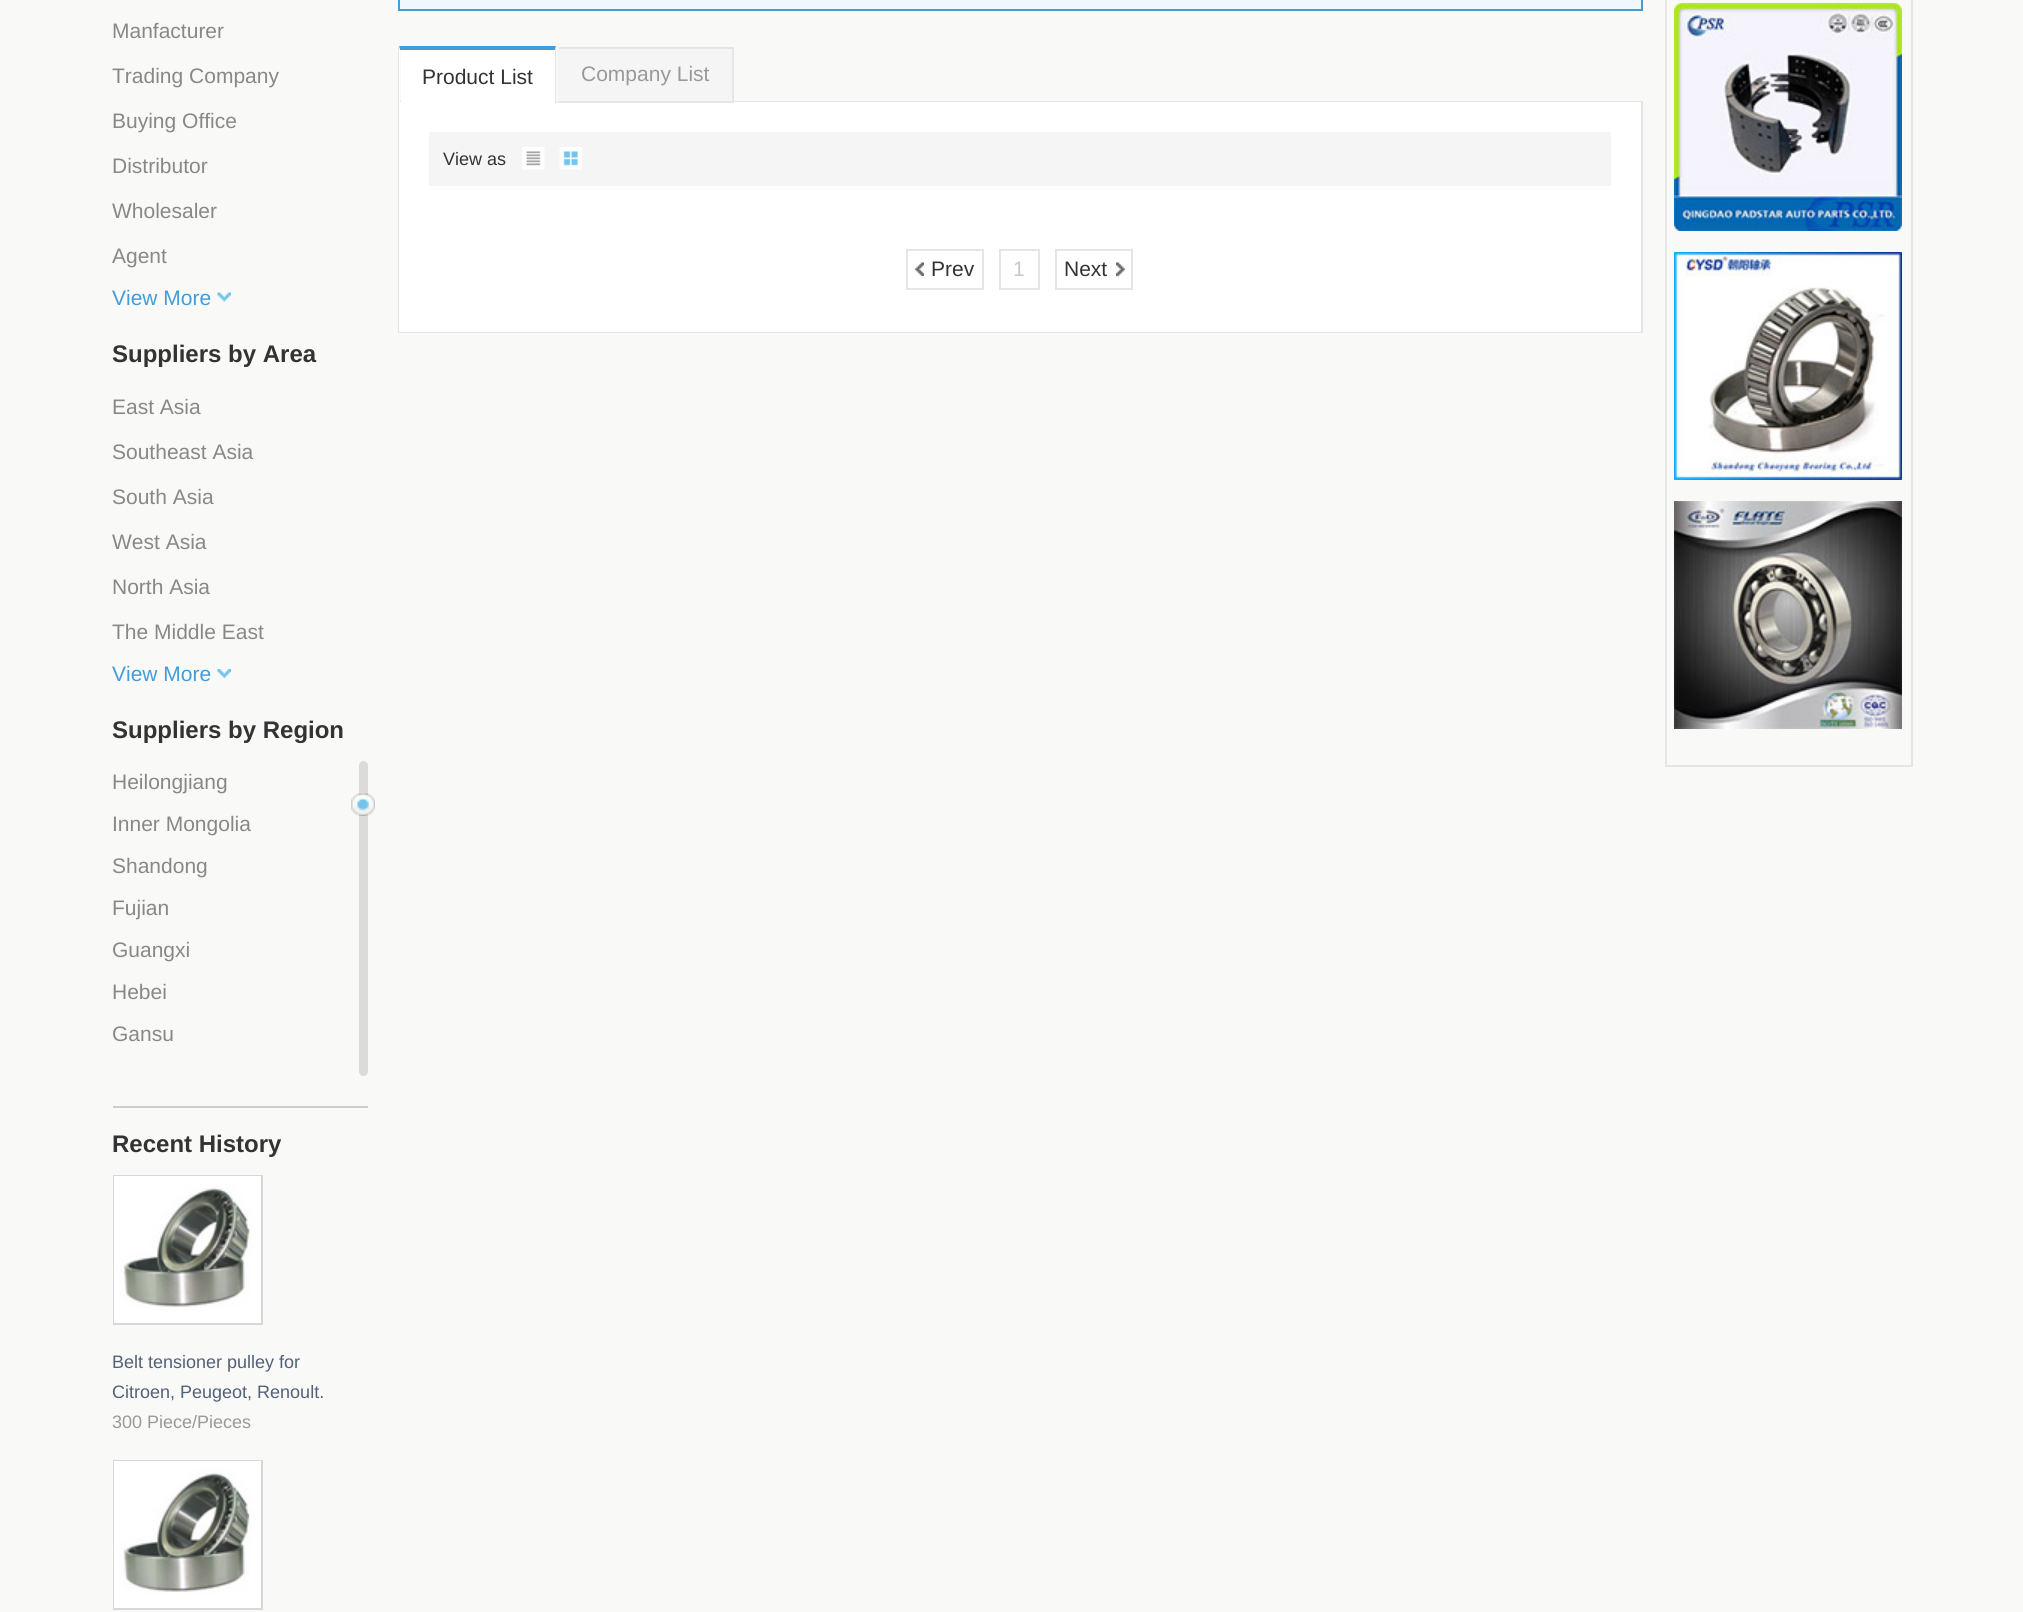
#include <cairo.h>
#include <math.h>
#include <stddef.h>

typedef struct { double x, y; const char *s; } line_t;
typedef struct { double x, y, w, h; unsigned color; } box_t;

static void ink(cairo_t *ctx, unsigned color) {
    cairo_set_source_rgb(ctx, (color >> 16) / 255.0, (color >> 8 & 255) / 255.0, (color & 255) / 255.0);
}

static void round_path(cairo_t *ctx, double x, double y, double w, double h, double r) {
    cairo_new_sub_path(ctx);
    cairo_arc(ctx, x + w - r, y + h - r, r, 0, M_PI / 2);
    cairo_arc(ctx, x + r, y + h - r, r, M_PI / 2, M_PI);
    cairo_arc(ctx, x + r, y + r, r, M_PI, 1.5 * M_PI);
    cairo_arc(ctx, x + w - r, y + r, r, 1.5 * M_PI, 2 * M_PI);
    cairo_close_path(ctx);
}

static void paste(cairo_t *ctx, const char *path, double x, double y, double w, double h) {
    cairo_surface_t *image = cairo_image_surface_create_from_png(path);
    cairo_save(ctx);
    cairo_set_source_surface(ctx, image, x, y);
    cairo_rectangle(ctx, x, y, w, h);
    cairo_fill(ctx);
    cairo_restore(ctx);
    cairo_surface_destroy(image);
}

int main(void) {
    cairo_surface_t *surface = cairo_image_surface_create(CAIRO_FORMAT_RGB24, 2023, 1612);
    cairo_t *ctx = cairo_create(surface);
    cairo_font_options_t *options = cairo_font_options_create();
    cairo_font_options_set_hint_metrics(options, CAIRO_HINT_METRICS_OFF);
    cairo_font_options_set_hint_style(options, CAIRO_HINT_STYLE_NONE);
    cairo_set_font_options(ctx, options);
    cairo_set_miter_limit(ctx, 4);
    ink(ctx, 0xF9F9F8);
    cairo_paint(ctx);
    cairo_select_font_face(ctx, "Liberation Sans", CAIRO_FONT_SLANT_NORMAL, CAIRO_FONT_WEIGHT_NORMAL);
    cairo_set_font_size(ctx, 21);
    ink(ctx, 0x888888);
    {
        static const line_t items[] = {
            {112, 38, "Manfacturer"},
            {112, 83, "Trading Company"},
            {112, 128, "Buying Office"},
            {112, 173, "Distributor"},
            {112, 218, "Wholesaler"},
            {112, 263, "Agent"},
        };
        for (size_t i = 0; i < sizeof items / sizeof *items; i++) {
            cairo_move_to(ctx, items[i].x, items[i].y);
            cairo_show_text(ctx, items[i].s);
        }
    }
    paste(ctx, "media/1.png", 217, 292, 14, 10);
    ink(ctx, 0x449CD7);
    cairo_move_to(ctx, 112, 305);
    cairo_show_text(ctx, "View More");
    cairo_select_font_face(ctx, "Liberation Sans", CAIRO_FONT_SLANT_NORMAL, CAIRO_FONT_WEIGHT_BOLD);
    cairo_set_font_size(ctx, 24);
    ink(ctx, 0x333333);
    cairo_move_to(ctx, 112, 362);
    cairo_show_text(ctx, "Suppliers by Area");
    cairo_select_font_face(ctx, "Liberation Sans", CAIRO_FONT_SLANT_NORMAL, CAIRO_FONT_WEIGHT_NORMAL);
    cairo_set_font_size(ctx, 21);
    ink(ctx, 0x888888);
    {
        static const line_t items[] = {
            {112, 414, "East Asia"},
            {112, 459, "Southeast Asia"},
            {112, 504, "South Asia"},
            {112, 549, "West Asia"},
            {112, 594, "North Asia"},
            {112, 639, "The Middle East"},
        };
        for (size_t i = 0; i < sizeof items / sizeof *items; i++) {
            cairo_move_to(ctx, items[i].x, items[i].y);
            cairo_show_text(ctx, items[i].s);
        }
    }
    paste(ctx, "media/2.png", 217, 669, 14, 9);
    ink(ctx, 0x449CD7);
    cairo_move_to(ctx, 112, 681);
    cairo_show_text(ctx, "View More");
    cairo_select_font_face(ctx, "Liberation Sans", CAIRO_FONT_SLANT_NORMAL, CAIRO_FONT_WEIGHT_BOLD);
    cairo_set_font_size(ctx, 24);
    ink(ctx, 0x333333);
    cairo_move_to(ctx, 112, 738);
    cairo_show_text(ctx, "Suppliers by Region");
    cairo_select_font_face(ctx, "Liberation Sans", CAIRO_FONT_SLANT_NORMAL, CAIRO_FONT_WEIGHT_NORMAL);
    cairo_set_font_size(ctx, 21);
    ink(ctx, 0x888888);
    {
        static const line_t items[] = {
            {112, 789, "Heilongjiang"},
            {112, 831, "Inner Mongolia"},
            {112, 873, "Shandong"},
            {112, 915, "Fujian"},
        };
        for (size_t i = 0; i < sizeof items / sizeof *items; i++) {
            cairo_move_to(ctx, items[i].x, items[i].y);
            cairo_show_text(ctx, items[i].s);
        }
    }
    cairo_save(ctx);
    cairo_rectangle(ctx, 113, 761, 285, 315);
    cairo_clip(ctx);
    cairo_move_to(ctx, 112, 957);
    cairo_show_text(ctx, "Guangxi");
    cairo_restore(ctx);
    cairo_move_to(ctx, 112, 999);
    cairo_show_text(ctx, "Hebei");
    cairo_save(ctx);
    cairo_rectangle(ctx, 113, 761, 285, 315);
    cairo_clip(ctx);
    cairo_move_to(ctx, 112, 1041);
    cairo_show_text(ctx, "Gansu");
    cairo_restore(ctx);
    ink(ctx, 0xDCDBD9);
    round_path(ctx, 359, 761, 9, 315, 4.5);
    cairo_fill(ctx);
    paste(ctx, "media/3.png", 351, 793, 24, 23);
    ink(ctx, 0xCECECE);
    cairo_rectangle(ctx, 113, 1106, 255, 2);
    cairo_fill(ctx);
    cairo_select_font_face(ctx, "Liberation Sans", CAIRO_FONT_SLANT_NORMAL, CAIRO_FONT_WEIGHT_BOLD);
    cairo_set_font_size(ctx, 24);
    ink(ctx, 0x333333);
    cairo_move_to(ctx, 112, 1152);
    cairo_show_text(ctx, "Recent History");
    cairo_rectangle(ctx, 114, 1176, 148, 148);
    ink(ctx, 0xD7D7D7);
    cairo_stroke(ctx);
    paste(ctx, "media/4.png", 114, 1176, 147, 147);
    cairo_select_font_face(ctx, "Liberation Sans", CAIRO_FONT_SLANT_NORMAL, CAIRO_FONT_WEIGHT_NORMAL);
    cairo_set_font_size(ctx, 18);
    ink(ctx, 0x526177);
    cairo_move_to(ctx, 112, 1368);
    cairo_show_text(ctx, "Belt tensioner pulley for");
    cairo_move_to(ctx, 112, 1398);
    cairo_show_text(ctx, "Citroen, Peugeot, Renoult.");
    ink(ctx, 0x999999);
    cairo_move_to(ctx, 112, 1428);
    cairo_show_text(ctx, "300 Piece/Pieces");
    cairo_rectangle(ctx, 114, 1461, 148, 148);
    ink(ctx, 0xD7D7D7);
    cairo_stroke(ctx);
    paste(ctx, "media/4.png", 114, 1461, 147, 147);
    ink(ctx, 0xEFF8FC);
    cairo_rectangle(ctx, 399, -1, 1243, 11);
    cairo_fill_preserve(ctx);
    ink(ctx, 0x449CD7);
    cairo_stroke(ctx);
    cairo_rectangle(ctx, 399, 102, 1243, 230);
    ink(ctx, 0xE5E5E5);
    cairo_stroke(ctx);
    cairo_rectangle(ctx, 398, 47, 2, 55);
    cairo_fill(ctx);
    ink(ctx, 0xFFFFFF);
    cairo_rectangle(ctx, 401, 50, 154, 52);
    cairo_fill(ctx);
    ink(ctx, 0x449CD7);
    cairo_new_path(ctx);
    cairo_move_to(ctx, 399, 46);
    cairo_line_to(ctx, 556, 46);
    cairo_line_to(ctx, 555, 50);
    cairo_line_to(ctx, 400, 50);
    cairo_close_path(ctx);
    cairo_fill(ctx);
    ink(ctx, 0xFFFFFF);
    cairo_rectangle(ctx, 399, 102, 1242, 230);
    cairo_fill(ctx);
    ink(ctx, 0xE5E5E5);
    cairo_new_path(ctx);
    cairo_move_to(ctx, 556, 46);
    cairo_line_to(ctx, 556, 105);
    cairo_line_to(ctx, 555, 104);
    cairo_line_to(ctx, 555, 50);
    cairo_close_path(ctx);
    cairo_fill(ctx);
    ink(ctx, 0xFFFFFF);
    cairo_rectangle(ctx, 555, 104, 2, 1);
    cairo_fill(ctx);
    cairo_new_path(ctx);
    cairo_move_to(ctx, 399, 105);
    cairo_line_to(ctx, 399, 46);
    cairo_line_to(ctx, 400, 50);
    cairo_line_to(ctx, 400, 104);
    cairo_close_path(ctx);
    cairo_fill(ctx);
    cairo_set_font_size(ctx, 21);
    ink(ctx, 0x333333);
    cairo_move_to(ctx, 422, 84);
    cairo_show_text(ctx, "Product List");
    {
        static const box_t items[] = {
            {559, 49, 173, 52, 0xF5F5F5},
            {557, 47, 177, 2, 0xE5E5E5},
            {732, 47, 2, 55, 0xE5E5E5},
            {557, 102, 177, 1, 0xE5E5E5},
            {557, 47, 2, 55, 0xF5F5F5},
        };
        for (size_t i = 0; i < sizeof items / sizeof *items; i++) {
            ink(ctx, items[i].color);
            cairo_rectangle(ctx, items[i].x, items[i].y, items[i].w, items[i].h);
            cairo_fill(ctx);
        }
    }
    ink(ctx, 0x999999);
    cairo_move_to(ctx, 581, 81);
    cairo_show_text(ctx, "Company List");
    ink(ctx, 0xF5F5F5);
    cairo_rectangle(ctx, 429, 132, 1182, 54);
    cairo_fill(ctx);
    cairo_set_font_size(ctx, 18);
    ink(ctx, 0x333333);
    cairo_move_to(ctx, 443, 165);
    cairo_show_text(ctx, "View as");
    paste(ctx, "media/5.png", 522, 147, 23, 23);
    paste(ctx, "media/6.png", 559, 147, 23, 23);
    paste(ctx, "media/7.png", 915, 262, 9, 14);
    cairo_rectangle(ctx, 907, 250, 76, 39);
    ink(ctx, 0xE5E5E5);
    cairo_stroke(ctx);
    cairo_set_font_size(ctx, 21);
    ink(ctx, 0x333333);
    cairo_move_to(ctx, 931, 276);
    cairo_show_text(ctx, "Prev");
    cairo_rectangle(ctx, 1000, 250, 39, 39);
    ink(ctx, 0xE5E5E5);
    cairo_stroke(ctx);
    ink(ctx, 0xC8C8C8);
    cairo_move_to(ctx, 1013, 276);
    cairo_show_text(ctx, "1");
    paste(ctx, "media/8.png", 1116, 262, 9, 15);
    cairo_rectangle(ctx, 1056, 250, 76, 39);
    ink(ctx, 0xE5E5E5);
    cairo_stroke(ctx);
    ink(ctx, 0x333333);
    cairo_move_to(ctx, 1064, 276);
    cairo_show_text(ctx, "Next");
    cairo_rectangle(ctx, 1666, -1, 246, 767);
    ink(ctx, 0xE5E5E5);
    cairo_stroke(ctx);
    paste(ctx, "media/9.png", 1674, 3, 228, 228);
    paste(ctx, "media/10.png", 1674, 252, 228, 228);
    paste(ctx, "media/11.png", 1674, 501, 228, 228);
    cairo_surface_write_to_png(surface, "image.png");
    cairo_font_options_destroy(options);
    cairo_destroy(ctx);
    cairo_surface_destroy(surface);
    return 0;
}
